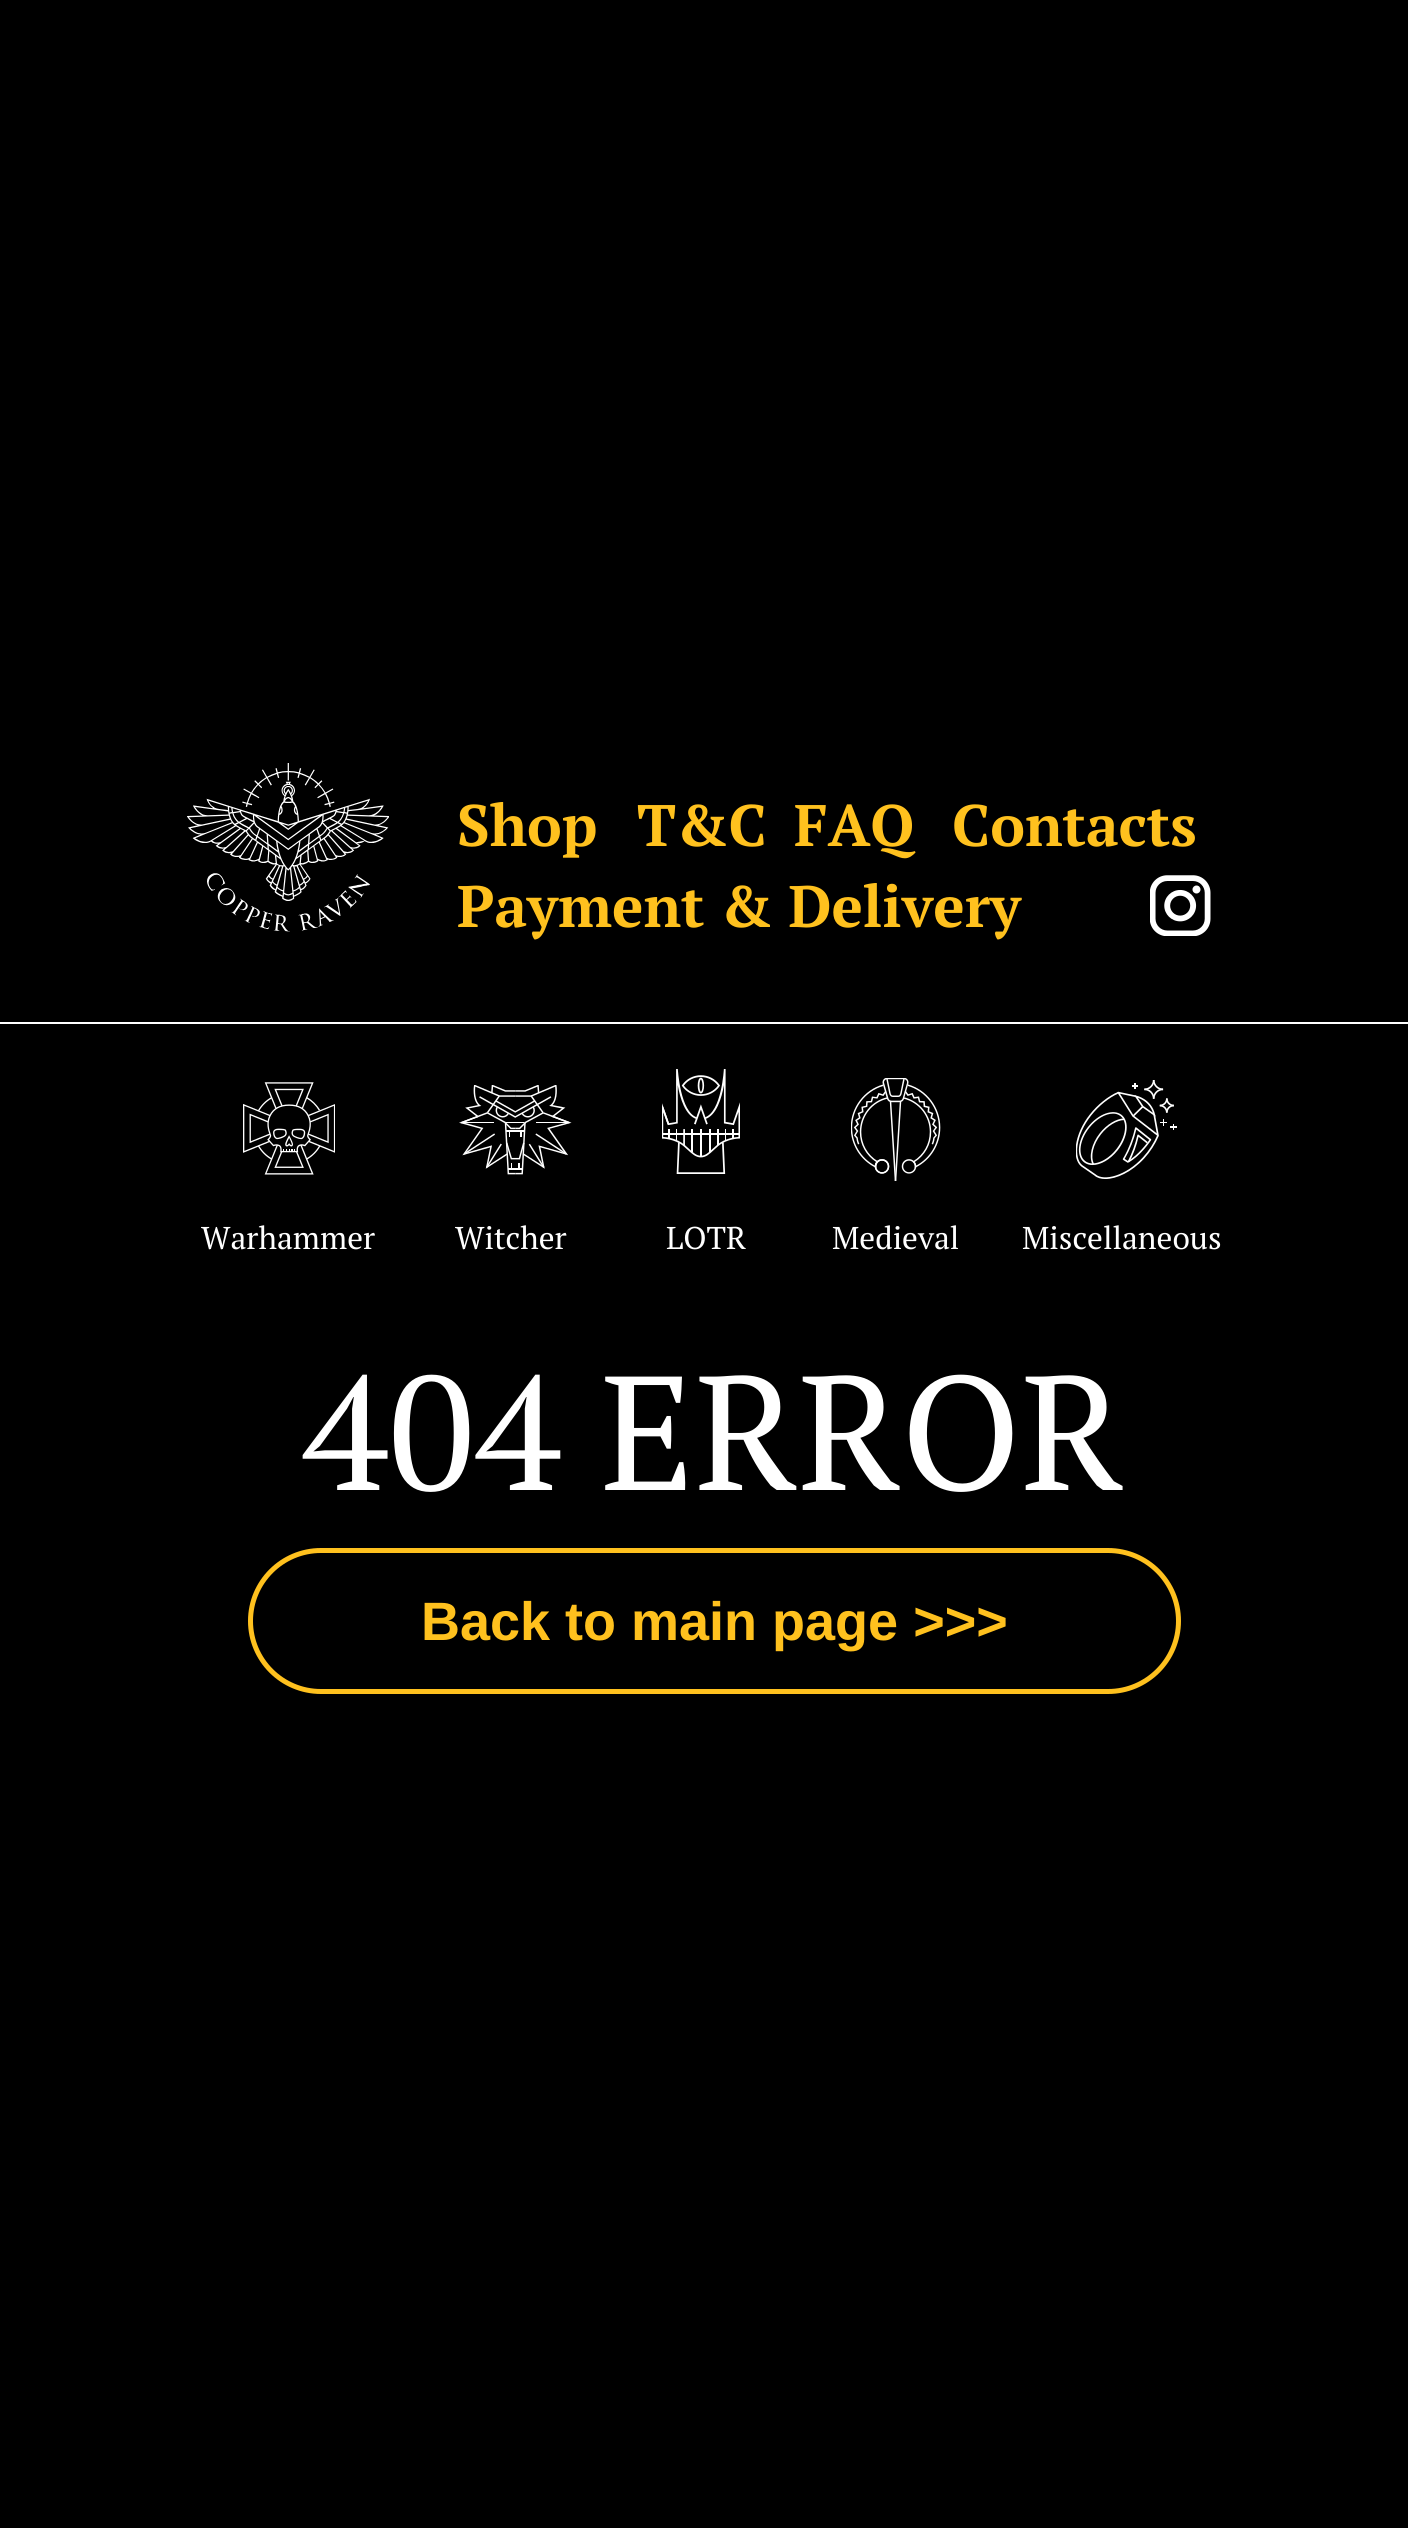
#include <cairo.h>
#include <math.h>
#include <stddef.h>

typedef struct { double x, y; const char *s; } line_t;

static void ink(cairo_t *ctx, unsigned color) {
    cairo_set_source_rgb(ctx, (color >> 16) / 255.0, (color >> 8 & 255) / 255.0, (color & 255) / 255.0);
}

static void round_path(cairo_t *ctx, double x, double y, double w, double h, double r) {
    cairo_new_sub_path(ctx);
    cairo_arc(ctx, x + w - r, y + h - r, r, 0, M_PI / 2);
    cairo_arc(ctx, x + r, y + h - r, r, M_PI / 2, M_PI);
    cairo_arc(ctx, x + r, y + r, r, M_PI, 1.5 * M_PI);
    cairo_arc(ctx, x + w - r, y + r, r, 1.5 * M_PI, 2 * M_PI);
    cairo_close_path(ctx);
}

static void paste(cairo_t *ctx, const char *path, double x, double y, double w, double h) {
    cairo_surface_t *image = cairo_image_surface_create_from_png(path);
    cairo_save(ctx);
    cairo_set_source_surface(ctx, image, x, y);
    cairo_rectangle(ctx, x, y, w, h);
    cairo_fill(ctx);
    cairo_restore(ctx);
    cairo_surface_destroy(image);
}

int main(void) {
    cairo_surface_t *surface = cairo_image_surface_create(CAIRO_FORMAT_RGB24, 1408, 2528);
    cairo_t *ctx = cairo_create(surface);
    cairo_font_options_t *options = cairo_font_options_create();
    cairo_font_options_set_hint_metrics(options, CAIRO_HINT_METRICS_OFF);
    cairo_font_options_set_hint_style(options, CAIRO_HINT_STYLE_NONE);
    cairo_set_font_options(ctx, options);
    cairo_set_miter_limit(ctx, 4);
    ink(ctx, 0x000000);
    cairo_paint(ctx);
    paste(ctx, "media/1.png", 187, 763, 202, 169);
    cairo_select_font_face(ctx, "PT Serif", CAIRO_FONT_SLANT_NORMAL, CAIRO_FONT_WEIGHT_BOLD);
    cairo_set_font_size(ctx, 58.5);
    ink(ctx, 0xFFC11E);
    {
        static const line_t items[] = {
            {457, 846, "Shop"},
            {637, 846, "T&C"},
            {794, 846, "FAQ"},
            {952, 846, "Contacts"},
            {457, 927, "Payment & Delivery"},
        };
        for (size_t i = 0; i < sizeof items / sizeof *items; i++) {
            cairo_move_to(ctx, items[i].x, items[i].y);
            cairo_show_text(ctx, items[i].s);
        }
    }
    paste(ctx, "media/2.png", 1150, 875, 61, 61);
    ink(ctx, 0xFFFFFF);
    cairo_rectangle(ctx, 0, 1022, 1408, 2);
    cairo_fill(ctx);
    paste(ctx, "media/3.png", 243, 1082, 92, 93);
    paste(ctx, "media/4.png", 459, 1085, 113, 90);
    paste(ctx, "media/5.png", 662, 1069, 78, 105);
    paste(ctx, "media/6.png", 851, 1078, 90, 103);
    paste(ctx, "media/7.png", 1076, 1080, 101, 99);
    cairo_select_font_face(ctx, "PT Serif", CAIRO_FONT_SLANT_NORMAL, CAIRO_FONT_WEIGHT_NORMAL);
    cairo_set_font_size(ctx, 31.5);
    {
        static const line_t items[] = {
            {201, 1249, "Warhammer"},
            {455, 1249, "Witcher"},
            {666, 1249, "LOTR"},
            {832, 1249, "Medieval"},
            {1022, 1249, "Miscellaneous"},
        };
        for (size_t i = 0; i < sizeof items / sizeof *items; i++) {
            cairo_move_to(ctx, items[i].x, items[i].y);
            cairo_show_text(ctx, items[i].s);
        }
    }
    cairo_set_font_size(ctx, 162);
    cairo_move_to(ctx, 302, 1490);
    cairo_show_text(ctx, "404 ERROR");
    round_path(ctx, 250.5, 1550.5, 928, 141, 70.5);
    ink(ctx, 0xFFC11E);
    cairo_set_line_width(ctx, 5);
    cairo_stroke(ctx);
    cairo_select_font_face(ctx, "Liberation Sans", CAIRO_FONT_SLANT_NORMAL, CAIRO_FONT_WEIGHT_BOLD);
    cairo_set_font_size(ctx, 54);
    cairo_move_to(ctx, 421, 1640);
    cairo_show_text(ctx, "Back to main page >>>");
    cairo_surface_write_to_png(surface, "image.png");
    cairo_font_options_destroy(options);
    cairo_destroy(ctx);
    cairo_surface_destroy(surface);
    return 0;
}
